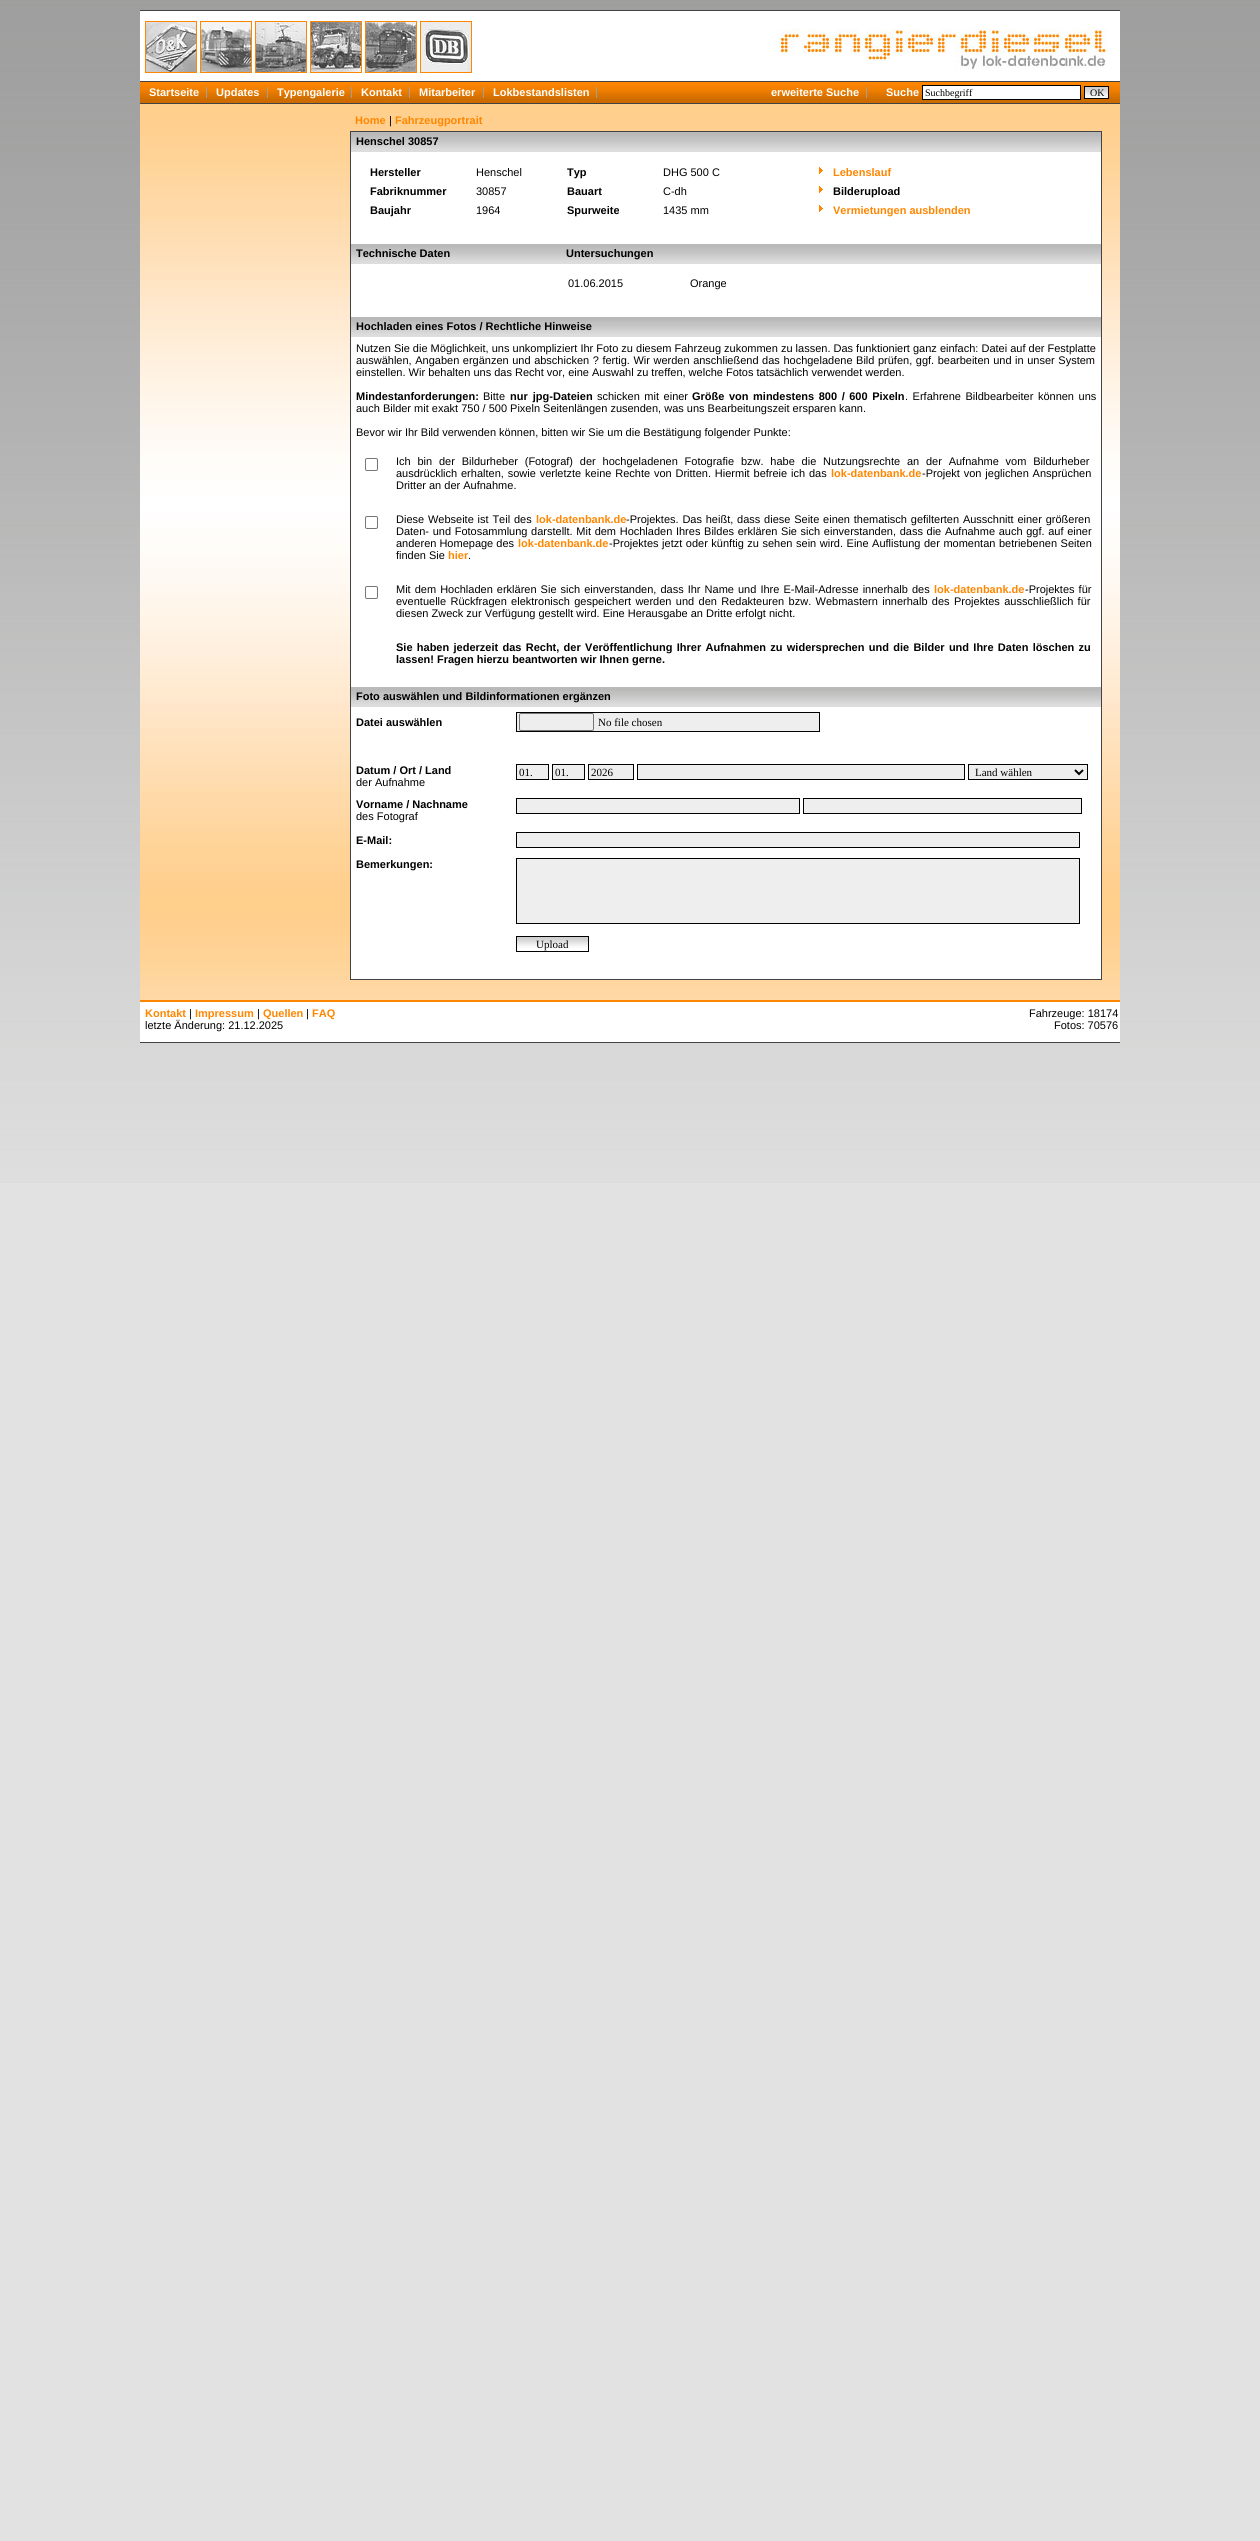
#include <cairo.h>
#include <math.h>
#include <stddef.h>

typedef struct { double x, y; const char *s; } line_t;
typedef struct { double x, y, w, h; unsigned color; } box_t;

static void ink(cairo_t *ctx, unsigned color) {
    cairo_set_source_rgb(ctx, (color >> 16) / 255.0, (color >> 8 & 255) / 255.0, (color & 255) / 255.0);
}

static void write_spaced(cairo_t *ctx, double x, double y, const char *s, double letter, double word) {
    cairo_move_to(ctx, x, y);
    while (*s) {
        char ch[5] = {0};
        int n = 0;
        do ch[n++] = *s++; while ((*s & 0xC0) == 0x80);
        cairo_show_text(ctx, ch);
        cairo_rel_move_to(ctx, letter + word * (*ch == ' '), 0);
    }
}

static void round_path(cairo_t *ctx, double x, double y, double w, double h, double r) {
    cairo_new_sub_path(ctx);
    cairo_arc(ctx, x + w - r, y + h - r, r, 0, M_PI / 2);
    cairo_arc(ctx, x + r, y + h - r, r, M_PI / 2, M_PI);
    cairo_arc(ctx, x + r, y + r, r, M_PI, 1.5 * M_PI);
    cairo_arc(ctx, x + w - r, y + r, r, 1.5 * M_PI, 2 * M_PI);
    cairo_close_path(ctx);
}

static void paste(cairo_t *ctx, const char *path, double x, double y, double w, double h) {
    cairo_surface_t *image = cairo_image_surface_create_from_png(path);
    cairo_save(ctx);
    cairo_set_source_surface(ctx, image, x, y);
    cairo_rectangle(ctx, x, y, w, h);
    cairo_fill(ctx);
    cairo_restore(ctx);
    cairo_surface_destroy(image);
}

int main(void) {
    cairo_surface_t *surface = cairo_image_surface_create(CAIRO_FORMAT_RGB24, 1260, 2541);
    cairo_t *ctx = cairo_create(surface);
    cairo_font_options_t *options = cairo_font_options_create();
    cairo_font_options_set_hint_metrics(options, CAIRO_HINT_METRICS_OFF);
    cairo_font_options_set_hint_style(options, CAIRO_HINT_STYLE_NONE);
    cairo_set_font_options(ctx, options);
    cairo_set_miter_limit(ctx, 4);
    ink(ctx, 0xE2E2E2);
    cairo_paint(ctx);
    paste(ctx, "media/1.png", 0, 0, 1260, 1183);
    ink(ctx, 0xFFFFFF);
    cairo_rectangle(ctx, 140, 11, 980, 70);
    cairo_fill(ctx);
    ink(ctx, 0x434343);
    cairo_rectangle(ctx, 140, 10, 980, 1);
    cairo_fill(ctx);
    cairo_rectangle(ctx, 145.5, 21.5, 51, 51);
    ink(ctx, 0xFF8600);
    cairo_set_line_width(ctx, 1);
    cairo_stroke(ctx);
    cairo_rectangle(ctx, 200.5, 21.5, 51, 51);
    cairo_stroke(ctx);
    cairo_rectangle(ctx, 255.5, 21.5, 51, 51);
    cairo_stroke(ctx);
    cairo_rectangle(ctx, 310.5, 21.5, 51, 51);
    cairo_stroke(ctx);
    cairo_rectangle(ctx, 365.5, 21.5, 51, 51);
    cairo_stroke(ctx);
    cairo_rectangle(ctx, 420.5, 21.5, 51, 51);
    cairo_stroke(ctx);
    paste(ctx, "media/2.png", 146, 22, 50, 50);
    paste(ctx, "media/3.png", 201, 22, 50, 50);
    paste(ctx, "media/4.png", 256, 22, 50, 50);
    paste(ctx, "media/5.png", 311, 22, 50, 50);
    paste(ctx, "media/6.png", 366, 22, 50, 50);
    paste(ctx, "media/7.png", 421, 22, 50, 50);
    paste(ctx, "media/8.png", 778, 29, 328, 40);
    ink(ctx, 0x434343);
    cairo_rectangle(ctx, 140, 81, 980, 1);
    cairo_fill(ctx);
    paste(ctx, "media/9.png", 140, 82, 980, 21);
    cairo_select_font_face(ctx, "Liberation Sans", CAIRO_FONT_SLANT_NORMAL, CAIRO_FONT_WEIGHT_BOLD);
    cairo_set_font_size(ctx, 11);
    ink(ctx, 0xFFFFFF);
    cairo_move_to(ctx, 149, 96);
    cairo_show_text(ctx, "Startseite");
    ink(ctx, 0xA0A0A0);
    cairo_rectangle(ctx, 206, 87, 1, 11);
    cairo_fill(ctx);
    ink(ctx, 0xFFFFFF);
    cairo_move_to(ctx, 216, 96);
    cairo_show_text(ctx, "Updates");
    ink(ctx, 0xA0A0A0);
    cairo_rectangle(ctx, 267, 87, 1, 11);
    cairo_fill(ctx);
    ink(ctx, 0xFFFFFF);
    cairo_move_to(ctx, 277, 96);
    cairo_show_text(ctx, "Typengalerie");
    ink(ctx, 0xA0A0A0);
    cairo_rectangle(ctx, 351, 87, 1, 11);
    cairo_fill(ctx);
    ink(ctx, 0xFFFFFF);
    cairo_move_to(ctx, 361, 96);
    cairo_show_text(ctx, "Kontakt");
    ink(ctx, 0xA0A0A0);
    cairo_rectangle(ctx, 409, 87, 1, 11);
    cairo_fill(ctx);
    ink(ctx, 0xFFFFFF);
    cairo_move_to(ctx, 419, 96);
    cairo_show_text(ctx, "Mitarbeiter");
    ink(ctx, 0xA0A0A0);
    cairo_rectangle(ctx, 483, 87, 1, 11);
    cairo_fill(ctx);
    ink(ctx, 0xFFFFFF);
    cairo_move_to(ctx, 493, 96);
    cairo_show_text(ctx, "Lokbestandslisten");
    ink(ctx, 0xA0A0A0);
    cairo_rectangle(ctx, 596, 87, 1, 11);
    cairo_fill(ctx);
    ink(ctx, 0xFFFFFF);
    cairo_move_to(ctx, 771, 96);
    cairo_show_text(ctx, "erweiterte Suche");
    ink(ctx, 0xA0A0A0);
    cairo_rectangle(ctx, 866, 87, 1, 11);
    cairo_fill(ctx);
    ink(ctx, 0xFFFFFF);
    cairo_move_to(ctx, 886, 96);
    cairo_show_text(ctx, "Suche");
    cairo_rectangle(ctx, 922.5, 85.5, 158, 14);
    cairo_fill_preserve(ctx);
    ink(ctx, 0x000000);
    cairo_stroke(ctx);
    cairo_select_font_face(ctx, "Liberation Serif", CAIRO_FONT_SLANT_NORMAL, CAIRO_FONT_WEIGHT_NORMAL);
    cairo_set_font_size(ctx, 10);
    cairo_move_to(ctx, 925, 96);
    cairo_show_text(ctx, "Suchbegriff");
    paste(ctx, "media/10.png", 1085, 87, 23, 11);
    cairo_rectangle(ctx, 1084.5, 86.5, 24, 12);
    cairo_stroke(ctx);
    cairo_move_to(ctx, 1090, 96);
    cairo_show_text(ctx, "OK");
    paste(ctx, "media/11.png", 140, 104, 980, 896);
    ink(ctx, 0x434343);
    cairo_rectangle(ctx, 140, 103, 980, 1);
    cairo_fill(ctx);
    cairo_select_font_face(ctx, "Liberation Sans", CAIRO_FONT_SLANT_NORMAL, CAIRO_FONT_WEIGHT_BOLD);
    cairo_set_font_size(ctx, 11);
    ink(ctx, 0xFF8600);
    cairo_move_to(ctx, 355, 124);
    cairo_show_text(ctx, "Home");
    cairo_select_font_face(ctx, "Liberation Sans", CAIRO_FONT_SLANT_NORMAL, CAIRO_FONT_WEIGHT_NORMAL);
    ink(ctx, 0x000000);
    cairo_move_to(ctx, 389, 124);
    cairo_show_text(ctx, "|");
    cairo_select_font_face(ctx, "Liberation Sans", CAIRO_FONT_SLANT_NORMAL, CAIRO_FONT_WEIGHT_BOLD);
    ink(ctx, 0xFF8600);
    cairo_move_to(ctx, 395, 124);
    cairo_show_text(ctx, "Fahrzeugportrait");
    ink(ctx, 0xFFFFFF);
    cairo_rectangle(ctx, 351, 152, 750, 827);
    cairo_fill(ctx);
    cairo_rectangle(ctx, 350.5, 131.5, 751, 848);
    ink(ctx, 0x434343);
    cairo_stroke(ctx);
    paste(ctx, "media/12.png", 351, 132, 750, 20);
    ink(ctx, 0x000000);
    cairo_move_to(ctx, 356, 145);
    cairo_show_text(ctx, "Henschel 30857");
    cairo_move_to(ctx, 370, 176);
    cairo_show_text(ctx, "Hersteller");
    cairo_select_font_face(ctx, "Liberation Sans", CAIRO_FONT_SLANT_NORMAL, CAIRO_FONT_WEIGHT_NORMAL);
    cairo_move_to(ctx, 476, 176);
    cairo_show_text(ctx, "Henschel");
    cairo_select_font_face(ctx, "Liberation Sans", CAIRO_FONT_SLANT_NORMAL, CAIRO_FONT_WEIGHT_BOLD);
    cairo_move_to(ctx, 567, 176);
    cairo_show_text(ctx, "Typ");
    cairo_select_font_face(ctx, "Liberation Sans", CAIRO_FONT_SLANT_NORMAL, CAIRO_FONT_WEIGHT_NORMAL);
    cairo_move_to(ctx, 663, 176);
    cairo_show_text(ctx, "DHG 500 C");
    paste(ctx, "media/13.png", 819, 167, 4, 7);
    cairo_select_font_face(ctx, "Liberation Sans", CAIRO_FONT_SLANT_NORMAL, CAIRO_FONT_WEIGHT_BOLD);
    ink(ctx, 0xFF8600);
    cairo_move_to(ctx, 833, 176);
    cairo_show_text(ctx, "Lebenslauf");
    ink(ctx, 0x000000);
    cairo_move_to(ctx, 370, 195);
    cairo_show_text(ctx, "Fabriknummer");
    cairo_select_font_face(ctx, "Liberation Sans", CAIRO_FONT_SLANT_NORMAL, CAIRO_FONT_WEIGHT_NORMAL);
    cairo_move_to(ctx, 476, 195);
    cairo_show_text(ctx, "30857");
    cairo_select_font_face(ctx, "Liberation Sans", CAIRO_FONT_SLANT_NORMAL, CAIRO_FONT_WEIGHT_BOLD);
    cairo_move_to(ctx, 567, 195);
    cairo_show_text(ctx, "Bauart");
    cairo_select_font_face(ctx, "Liberation Sans", CAIRO_FONT_SLANT_NORMAL, CAIRO_FONT_WEIGHT_NORMAL);
    cairo_move_to(ctx, 663, 195);
    cairo_show_text(ctx, "C-dh");
    paste(ctx, "media/13.png", 819, 186, 4, 7);
    cairo_select_font_face(ctx, "Liberation Sans", CAIRO_FONT_SLANT_NORMAL, CAIRO_FONT_WEIGHT_BOLD);
    cairo_move_to(ctx, 833, 195);
    cairo_show_text(ctx, "Bilderupload");
    cairo_move_to(ctx, 370, 214);
    cairo_show_text(ctx, "Baujahr");
    cairo_select_font_face(ctx, "Liberation Sans", CAIRO_FONT_SLANT_NORMAL, CAIRO_FONT_WEIGHT_NORMAL);
    cairo_move_to(ctx, 476, 214);
    cairo_show_text(ctx, "1964");
    cairo_select_font_face(ctx, "Liberation Sans", CAIRO_FONT_SLANT_NORMAL, CAIRO_FONT_WEIGHT_BOLD);
    cairo_move_to(ctx, 567, 214);
    cairo_show_text(ctx, "Spurweite");
    cairo_select_font_face(ctx, "Liberation Sans", CAIRO_FONT_SLANT_NORMAL, CAIRO_FONT_WEIGHT_NORMAL);
    cairo_move_to(ctx, 663, 214);
    cairo_show_text(ctx, "1435 mm");
    paste(ctx, "media/13.png", 819, 205, 4, 7);
    cairo_select_font_face(ctx, "Liberation Sans", CAIRO_FONT_SLANT_NORMAL, CAIRO_FONT_WEIGHT_BOLD);
    ink(ctx, 0xFF8600);
    cairo_move_to(ctx, 833, 214);
    cairo_show_text(ctx, "Vermietungen ausblenden");
    paste(ctx, "media/12.png", 351, 244, 750, 20);
    ink(ctx, 0x000000);
    cairo_move_to(ctx, 356, 257);
    cairo_show_text(ctx, "Technische Daten");
    cairo_move_to(ctx, 566, 257);
    cairo_show_text(ctx, "Untersuchungen");
    cairo_select_font_face(ctx, "Liberation Sans", CAIRO_FONT_SLANT_NORMAL, CAIRO_FONT_WEIGHT_NORMAL);
    cairo_move_to(ctx, 568, 287);
    cairo_show_text(ctx, "01.06.2015");
    cairo_move_to(ctx, 690, 287);
    cairo_show_text(ctx, "Orange");
    paste(ctx, "media/12.png", 351, 317, 750, 20);
    cairo_select_font_face(ctx, "Liberation Sans", CAIRO_FONT_SLANT_NORMAL, CAIRO_FONT_WEIGHT_BOLD);
    cairo_move_to(ctx, 356, 330);
    cairo_show_text(ctx, "Hochladen eines Fotos / Rechtliche Hinweise");
    cairo_select_font_face(ctx, "Liberation Sans", CAIRO_FONT_SLANT_NORMAL, CAIRO_FONT_WEIGHT_NORMAL);
    cairo_move_to(ctx, 356, 352);
    cairo_show_text(ctx, "Nutzen Sie die Möglichkeit, uns unkompliziert Ihr Foto zu diesem Fahrzeug zukommen zu lassen. Das funktioniert ganz einfach: Datei auf der Festplatte");
    write_spaced(ctx, 356, 364, "auswählen, Angaben ergänzen und abschicken ? fertig. Wir werden anschließend das hochgeladene Bild prüfen, ggf. bearbeiten und in unser System", 0, 0.5);
    cairo_move_to(ctx, 356, 376);
    cairo_show_text(ctx, "einstellen. Wir behalten uns das Recht vor, eine Auswahl zu treffen, welche Fotos tatsächlich verwendet werden.");
    cairo_select_font_face(ctx, "Liberation Sans", CAIRO_FONT_SLANT_NORMAL, CAIRO_FONT_WEIGHT_BOLD);
    cairo_move_to(ctx, 356, 400);
    cairo_show_text(ctx, "Mindestanforderungen:");
    cairo_select_font_face(ctx, "Liberation Sans", CAIRO_FONT_SLANT_NORMAL, CAIRO_FONT_WEIGHT_NORMAL);
    cairo_move_to(ctx, 483, 400);
    cairo_show_text(ctx, "Bitte");
    cairo_select_font_face(ctx, "Liberation Sans", CAIRO_FONT_SLANT_NORMAL, CAIRO_FONT_WEIGHT_BOLD);
    write_spaced(ctx, 510, 400, "nur jpg-Dateien", 0, 2);
    cairo_select_font_face(ctx, "Liberation Sans", CAIRO_FONT_SLANT_NORMAL, CAIRO_FONT_WEIGHT_NORMAL);
    write_spaced(ctx, 597, 400, "schicken mit einer", 0, 1.5);
    cairo_select_font_face(ctx, "Liberation Sans", CAIRO_FONT_SLANT_NORMAL, CAIRO_FONT_WEIGHT_BOLD);
    write_spaced(ctx, 692, 400, "Größe von mindestens 800 / 600 Pixeln", 0, 1.5);
    cairo_select_font_face(ctx, "Liberation Sans", CAIRO_FONT_SLANT_NORMAL, CAIRO_FONT_WEIGHT_NORMAL);
    write_spaced(ctx, 905, 400, ". Erfahrene Bildbearbeiter können uns", 0, 1.5);
    cairo_move_to(ctx, 356, 412);
    cairo_show_text(ctx, "auch Bilder mit exakt 750 / 500 Pixeln Seitenlängen zusenden, was uns Bearbeitungszeit ersparen kann.");
    cairo_move_to(ctx, 356, 436);
    cairo_show_text(ctx, "Bevor wir Ihr Bild verwenden können, bitten wir Sie um die Bestätigung folgender Punkte:");
    round_path(ctx, 365.5, 458.5, 12, 12, 1.5);
    ink(ctx, 0x767676);
    cairo_stroke(ctx);
    ink(ctx, 0x000000);
    write_spaced(ctx, 396, 465, "Ich bin der Bildurheber (Fotograf) der hochgeladenen Fotografie bzw. habe die Nutzungsrechte an der Aufnahme vom Bildurheber", 0, 3.75);
    write_spaced(ctx, 396, 477, "ausdrücklich erhalten, sowie verletzte keine Rechte von Dritten. Hiermit befreie ich das", 0, 0.8);
    cairo_select_font_face(ctx, "Liberation Sans", CAIRO_FONT_SLANT_NORMAL, CAIRO_FONT_WEIGHT_BOLD);
    ink(ctx, 0xFF8600);
    cairo_move_to(ctx, 831, 477);
    cairo_show_text(ctx, "lok-datenbank.de");
    cairo_select_font_face(ctx, "Liberation Sans", CAIRO_FONT_SLANT_NORMAL, CAIRO_FONT_WEIGHT_NORMAL);
    ink(ctx, 0x000000);
    write_spaced(ctx, 922, 477, "-Projekt von jeglichen Ansprüchen", 0, 0.8);
    cairo_move_to(ctx, 396, 489);
    cairo_show_text(ctx, "Dritter an der Aufnahme.");
    round_path(ctx, 365.5, 516.5, 12, 12, 1.5);
    ink(ctx, 0x767676);
    cairo_stroke(ctx);
    ink(ctx, 0x000000);
    write_spaced(ctx, 396, 523, "Diese Webseite ist Teil des", 0, 0.75);
    cairo_select_font_face(ctx, "Liberation Sans", CAIRO_FONT_SLANT_NORMAL, CAIRO_FONT_WEIGHT_BOLD);
    ink(ctx, 0xFF8600);
    cairo_move_to(ctx, 536, 523);
    cairo_show_text(ctx, "lok-datenbank.de");
    cairo_select_font_face(ctx, "Liberation Sans", CAIRO_FONT_SLANT_NORMAL, CAIRO_FONT_WEIGHT_NORMAL);
    ink(ctx, 0x000000);
    write_spaced(ctx, 626, 523, "-Projektes. Das heißt, dass diese Seite einen thematisch gefilterten Ausschnitt einer größeren", 0, 0.75);
    write_spaced(ctx, 396, 535, "Daten- und Fotosammlung darstellt. Mit dem Hochladen Ihres Bildes erklären Sie sich einverstanden, dass die Aufnahme auch ggf. auf einer", 0, 0.6);
    cairo_move_to(ctx, 396, 547);
    cairo_show_text(ctx, "anderen Homepage des");
    cairo_select_font_face(ctx, "Liberation Sans", CAIRO_FONT_SLANT_NORMAL, CAIRO_FONT_WEIGHT_BOLD);
    ink(ctx, 0xFF8600);
    cairo_move_to(ctx, 518, 547);
    cairo_show_text(ctx, "lok-datenbank.de");
    cairo_select_font_face(ctx, "Liberation Sans", CAIRO_FONT_SLANT_NORMAL, CAIRO_FONT_WEIGHT_NORMAL);
    ink(ctx, 0x000000);
    write_spaced(ctx, 609, 547, "-Projektes jetzt oder künftig zu sehen sein wird. Eine Auflistung der momentan betriebenen Seiten", 0, 0.5);
    cairo_move_to(ctx, 396, 559);
    cairo_show_text(ctx, "finden Sie");
    cairo_select_font_face(ctx, "Liberation Sans", CAIRO_FONT_SLANT_NORMAL, CAIRO_FONT_WEIGHT_BOLD);
    ink(ctx, 0xFF8600);
    cairo_move_to(ctx, 448, 559);
    cairo_show_text(ctx, "hier");
    cairo_select_font_face(ctx, "Liberation Sans", CAIRO_FONT_SLANT_NORMAL, CAIRO_FONT_WEIGHT_NORMAL);
    ink(ctx, 0x000000);
    cairo_move_to(ctx, 468, 559);
    cairo_show_text(ctx, ".");
    round_path(ctx, 365.5, 586.5, 12, 12, 1.5);
    ink(ctx, 0x767676);
    cairo_stroke(ctx);
    ink(ctx, 0x000000);
    write_spaced(ctx, 396, 593, "Mit dem Hochladen erklären Sie sich einverstanden, dass Ihr Name und Ihre E-Mail-Adresse innerhalb des", 0, 1);
    cairo_select_font_face(ctx, "Liberation Sans", CAIRO_FONT_SLANT_NORMAL, CAIRO_FONT_WEIGHT_BOLD);
    ink(ctx, 0xFF8600);
    cairo_move_to(ctx, 934, 593);
    cairo_show_text(ctx, "lok-datenbank.de");
    cairo_select_font_face(ctx, "Liberation Sans", CAIRO_FONT_SLANT_NORMAL, CAIRO_FONT_WEIGHT_NORMAL);
    ink(ctx, 0x000000);
    write_spaced(ctx, 1025, 593, "-Projektes für", 0, 1);
    write_spaced(ctx, 396, 605, "eventuelle Rückfragen elektronisch gespeichert werden und den Redakteuren bzw. Webmastern innerhalb des Projektes ausschließlich für", 0, 1.3);
    cairo_move_to(ctx, 396, 617);
    cairo_show_text(ctx, "diesen Zweck zur Verfügung gestellt wird. Eine Herausgabe an Dritte erfolgt nicht.");
    cairo_select_font_face(ctx, "Liberation Sans", CAIRO_FONT_SLANT_NORMAL, CAIRO_FONT_WEIGHT_BOLD);
    write_spaced(ctx, 396, 651, "Sie haben jederzeit das Recht, der Veröffentlichung Ihrer Aufnahmen zu widersprechen und die Bilder und Ihre Daten löschen zu", 0, 1.25);
    cairo_move_to(ctx, 396, 663);
    cairo_show_text(ctx, "lassen! Fragen hierzu beantworten wir Ihnen gerne.");
    paste(ctx, "media/12.png", 351, 687, 750, 20);
    cairo_move_to(ctx, 356, 700);
    cairo_show_text(ctx, "Foto auswählen und Bildinformationen ergänzen");
    cairo_move_to(ctx, 356, 726);
    cairo_show_text(ctx, "Datei auswählen");
    ink(ctx, 0xEEEEEE);
    cairo_rectangle(ctx, 516.5, 712.5, 303, 19);
    cairo_fill_preserve(ctx);
    ink(ctx, 0x000000);
    cairo_stroke(ctx);
    round_path(ctx, 519.5, 713.5, 74, 17, 1.5);
    ink(ctx, 0x767676);
    cairo_stroke(ctx);
    cairo_select_font_face(ctx, "Liberation Serif", CAIRO_FONT_SLANT_NORMAL, CAIRO_FONT_WEIGHT_NORMAL);
    ink(ctx, 0x000000);
    cairo_move_to(ctx, 598, 726);
    cairo_show_text(ctx, "No file chosen");
    cairo_select_font_face(ctx, "Liberation Sans", CAIRO_FONT_SLANT_NORMAL, CAIRO_FONT_WEIGHT_BOLD);
    cairo_move_to(ctx, 356, 774);
    cairo_show_text(ctx, "Datum / Ort / Land");
    cairo_select_font_face(ctx, "Liberation Sans", CAIRO_FONT_SLANT_NORMAL, CAIRO_FONT_WEIGHT_NORMAL);
    cairo_move_to(ctx, 356, 786);
    cairo_show_text(ctx, "der Aufnahme");
    ink(ctx, 0xEEEEEE);
    cairo_rectangle(ctx, 516.5, 764.5, 32, 15);
    cairo_fill_preserve(ctx);
    ink(ctx, 0x000000);
    cairo_stroke(ctx);
    cairo_select_font_face(ctx, "Liberation Serif", CAIRO_FONT_SLANT_NORMAL, CAIRO_FONT_WEIGHT_NORMAL);
    cairo_move_to(ctx, 519, 776);
    cairo_show_text(ctx, "01.");
    ink(ctx, 0xEEEEEE);
    cairo_rectangle(ctx, 552.5, 764.5, 32, 15);
    cairo_fill_preserve(ctx);
    ink(ctx, 0x000000);
    cairo_stroke(ctx);
    cairo_move_to(ctx, 555, 776);
    cairo_show_text(ctx, "01.");
    ink(ctx, 0xEEEEEE);
    cairo_rectangle(ctx, 588.5, 764.5, 45, 15);
    cairo_fill_preserve(ctx);
    ink(ctx, 0x000000);
    cairo_stroke(ctx);
    cairo_move_to(ctx, 591, 776);
    cairo_show_text(ctx, "2026");
    ink(ctx, 0xEEEEEE);
    cairo_rectangle(ctx, 637.5, 764.5, 327, 15);
    cairo_fill_preserve(ctx);
    ink(ctx, 0x000000);
    cairo_stroke(ctx);
    ink(ctx, 0xEEEEEE);
    cairo_rectangle(ctx, 968.5, 764.5, 119, 15);
    cairo_fill_preserve(ctx);
    ink(ctx, 0x000000);
    cairo_stroke(ctx);
    cairo_new_path(ctx);
    cairo_move_to(ctx, 1075, 770);
    cairo_line_to(ctx, 1079, 774);
    cairo_line_to(ctx, 1083, 770);
    cairo_set_line_width(ctx, 2);
    cairo_stroke(ctx);
    cairo_move_to(ctx, 975, 776);
    cairo_show_text(ctx, "Land wählen");
    cairo_select_font_face(ctx, "Liberation Sans", CAIRO_FONT_SLANT_NORMAL, CAIRO_FONT_WEIGHT_BOLD);
    cairo_move_to(ctx, 356, 808);
    cairo_show_text(ctx, "Vorname / Nachname");
    cairo_select_font_face(ctx, "Liberation Sans", CAIRO_FONT_SLANT_NORMAL, CAIRO_FONT_WEIGHT_NORMAL);
    cairo_move_to(ctx, 356, 820);
    cairo_show_text(ctx, "des Fotograf");
    ink(ctx, 0xEEEEEE);
    cairo_rectangle(ctx, 516.5, 798.5, 283, 15);
    cairo_fill_preserve(ctx);
    ink(ctx, 0x000000);
    cairo_set_line_width(ctx, 1);
    cairo_stroke(ctx);
    ink(ctx, 0xEEEEEE);
    cairo_rectangle(ctx, 803.5, 798.5, 278, 15);
    cairo_fill_preserve(ctx);
    ink(ctx, 0x000000);
    cairo_stroke(ctx);
    cairo_select_font_face(ctx, "Liberation Sans", CAIRO_FONT_SLANT_NORMAL, CAIRO_FONT_WEIGHT_BOLD);
    cairo_move_to(ctx, 356, 844);
    cairo_show_text(ctx, "E-Mail:");
    ink(ctx, 0xEEEEEE);
    cairo_rectangle(ctx, 516.5, 832.5, 563, 15);
    cairo_fill_preserve(ctx);
    ink(ctx, 0x000000);
    cairo_stroke(ctx);
    cairo_move_to(ctx, 356, 868);
    cairo_show_text(ctx, "Bemerkungen:");
    ink(ctx, 0xEEEEEE);
    cairo_rectangle(ctx, 516.5, 858.5, 563, 65);
    cairo_fill_preserve(ctx);
    ink(ctx, 0x000000);
    cairo_stroke(ctx);
    paste(ctx, "media/14.png", 517, 937, 71, 14);
    cairo_rectangle(ctx, 516.5, 936.5, 72, 15);
    cairo_stroke(ctx);
    cairo_select_font_face(ctx, "Liberation Serif", CAIRO_FONT_SLANT_NORMAL, CAIRO_FONT_WEIGHT_NORMAL);
    cairo_move_to(ctx, 536, 948);
    cairo_show_text(ctx, "Upload");
    {
        static const box_t items[] = {
            {140, 1002, 980, 40, 0xFFFFFF},
            {140, 1000, 980, 2, 0xFF8600},
            {140, 1042, 980, 1, 0x434343},
        };
        for (size_t i = 0; i < sizeof items / sizeof *items; i++) {
            ink(ctx, items[i].color);
            cairo_rectangle(ctx, items[i].x, items[i].y, items[i].w, items[i].h);
            cairo_fill(ctx);
        }
    }
    cairo_select_font_face(ctx, "Liberation Sans", CAIRO_FONT_SLANT_NORMAL, CAIRO_FONT_WEIGHT_BOLD);
    ink(ctx, 0xFF8600);
    cairo_move_to(ctx, 145, 1017);
    cairo_show_text(ctx, "Kontakt");
    cairo_select_font_face(ctx, "Liberation Sans", CAIRO_FONT_SLANT_NORMAL, CAIRO_FONT_WEIGHT_NORMAL);
    ink(ctx, 0x000000);
    cairo_move_to(ctx, 189, 1017);
    cairo_show_text(ctx, "|");
    cairo_select_font_face(ctx, "Liberation Sans", CAIRO_FONT_SLANT_NORMAL, CAIRO_FONT_WEIGHT_BOLD);
    ink(ctx, 0xFF8600);
    cairo_move_to(ctx, 195, 1017);
    cairo_show_text(ctx, "Impressum");
    cairo_select_font_face(ctx, "Liberation Sans", CAIRO_FONT_SLANT_NORMAL, CAIRO_FONT_WEIGHT_NORMAL);
    ink(ctx, 0x000000);
    cairo_move_to(ctx, 257, 1017);
    cairo_show_text(ctx, "|");
    cairo_select_font_face(ctx, "Liberation Sans", CAIRO_FONT_SLANT_NORMAL, CAIRO_FONT_WEIGHT_BOLD);
    ink(ctx, 0xFF8600);
    cairo_move_to(ctx, 263, 1017);
    cairo_show_text(ctx, "Quellen");
    cairo_select_font_face(ctx, "Liberation Sans", CAIRO_FONT_SLANT_NORMAL, CAIRO_FONT_WEIGHT_NORMAL);
    ink(ctx, 0x000000);
    cairo_move_to(ctx, 306, 1017);
    cairo_show_text(ctx, "|");
    cairo_select_font_face(ctx, "Liberation Sans", CAIRO_FONT_SLANT_NORMAL, CAIRO_FONT_WEIGHT_BOLD);
    ink(ctx, 0xFF8600);
    cairo_move_to(ctx, 312, 1017);
    cairo_show_text(ctx, "FAQ");
    cairo_select_font_face(ctx, "Liberation Sans", CAIRO_FONT_SLANT_NORMAL, CAIRO_FONT_WEIGHT_NORMAL);
    ink(ctx, 0x000000);
    {
        static const line_t items[] = {
            {145, 1029, "letzte Änderung: 21.12.2025"},
            {1029, 1017, "Fahrzeuge: 18174"},
            {1054, 1029, "Fotos: 70576"},
        };
        for (size_t i = 0; i < sizeof items / sizeof *items; i++) {
            cairo_move_to(ctx, items[i].x, items[i].y);
            cairo_show_text(ctx, items[i].s);
        }
    }
    cairo_surface_write_to_png(surface, "image.png");
    cairo_font_options_destroy(options);
    cairo_destroy(ctx);
    cairo_surface_destroy(surface);
    return 0;
}
